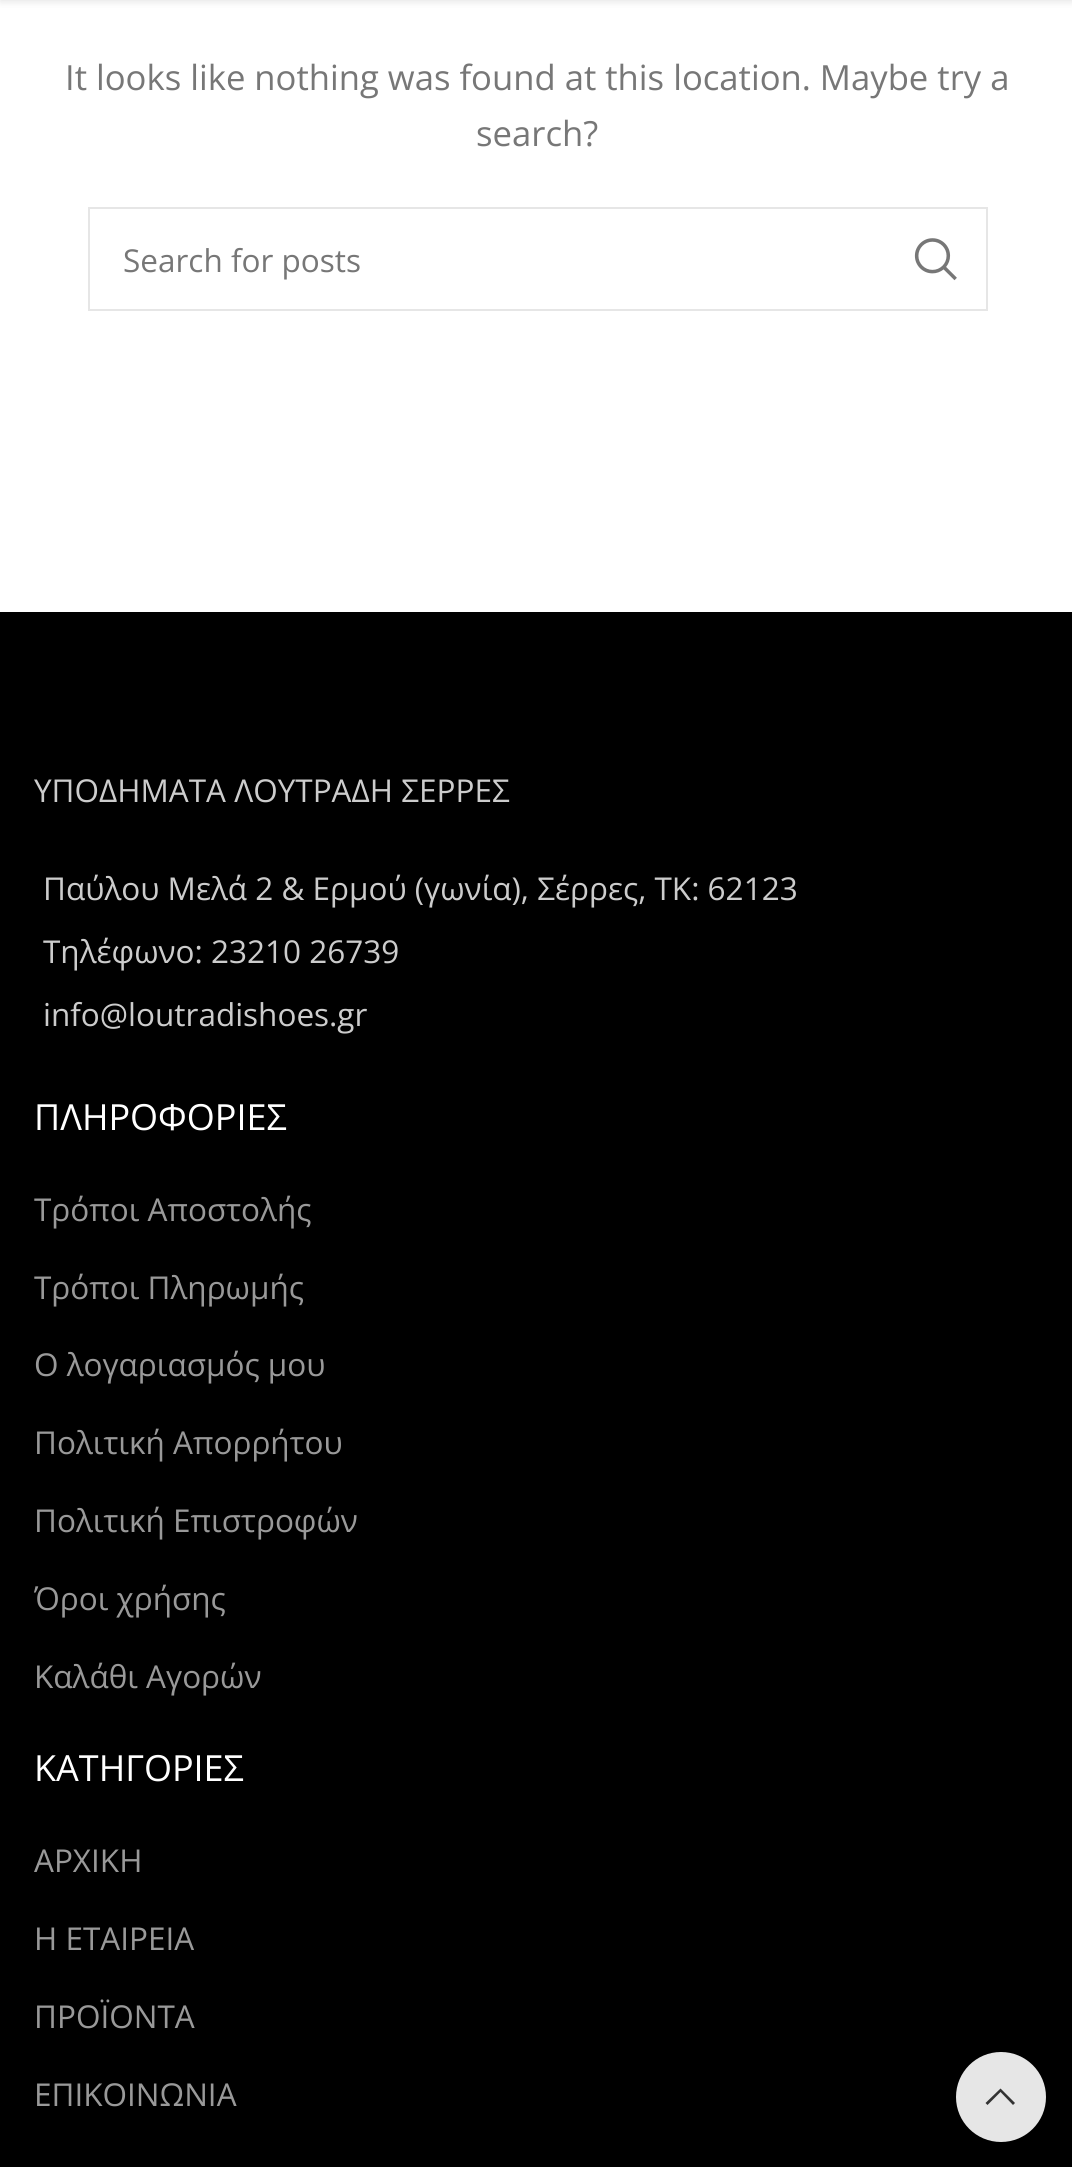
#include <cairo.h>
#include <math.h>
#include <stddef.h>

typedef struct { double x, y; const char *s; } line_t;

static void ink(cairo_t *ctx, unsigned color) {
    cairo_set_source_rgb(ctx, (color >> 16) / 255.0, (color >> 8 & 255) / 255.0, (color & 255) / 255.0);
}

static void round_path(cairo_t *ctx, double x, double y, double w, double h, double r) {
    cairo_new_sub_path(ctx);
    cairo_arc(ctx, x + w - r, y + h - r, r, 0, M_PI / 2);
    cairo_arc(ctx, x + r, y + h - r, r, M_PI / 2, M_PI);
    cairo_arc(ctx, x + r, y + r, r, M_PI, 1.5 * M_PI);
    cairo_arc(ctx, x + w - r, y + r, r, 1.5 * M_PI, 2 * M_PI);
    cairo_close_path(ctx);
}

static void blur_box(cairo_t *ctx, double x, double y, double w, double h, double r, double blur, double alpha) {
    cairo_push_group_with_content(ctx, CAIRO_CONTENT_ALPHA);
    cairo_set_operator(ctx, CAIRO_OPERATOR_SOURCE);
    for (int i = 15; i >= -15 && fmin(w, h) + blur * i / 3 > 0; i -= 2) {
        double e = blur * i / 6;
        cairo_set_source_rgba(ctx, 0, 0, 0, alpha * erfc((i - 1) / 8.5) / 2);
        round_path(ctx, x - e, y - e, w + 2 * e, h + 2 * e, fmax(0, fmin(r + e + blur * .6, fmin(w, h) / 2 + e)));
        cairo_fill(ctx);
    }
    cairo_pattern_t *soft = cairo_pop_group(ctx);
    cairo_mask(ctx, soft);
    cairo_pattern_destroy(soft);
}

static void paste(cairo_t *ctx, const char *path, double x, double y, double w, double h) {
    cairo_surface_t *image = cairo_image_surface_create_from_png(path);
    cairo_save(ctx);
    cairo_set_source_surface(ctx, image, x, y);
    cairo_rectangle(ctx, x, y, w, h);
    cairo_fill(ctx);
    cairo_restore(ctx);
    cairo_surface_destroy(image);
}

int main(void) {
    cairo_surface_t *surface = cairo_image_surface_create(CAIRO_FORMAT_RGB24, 1072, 2167);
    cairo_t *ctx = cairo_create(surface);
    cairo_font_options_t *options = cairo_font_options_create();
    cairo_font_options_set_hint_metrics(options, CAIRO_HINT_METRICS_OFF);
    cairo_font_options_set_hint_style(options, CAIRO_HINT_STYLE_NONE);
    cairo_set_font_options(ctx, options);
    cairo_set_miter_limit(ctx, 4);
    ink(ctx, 0xFFFFFF);
    cairo_paint(ctx);
    ink(ctx, 0x000000);
    blur_box(ctx, 0, -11, 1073, 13, 0, 3.5, 0.1);
    cairo_select_font_face(ctx, "Open Sans", CAIRO_FONT_SLANT_NORMAL, CAIRO_FONT_WEIGHT_NORMAL);
    cairo_set_font_size(ctx, 34.65);
    ink(ctx, 0x777777);
    cairo_move_to(ctx, 65, 90);
    cairo_show_text(ctx, "It looks like nothing was found at this location. Maybe try a");
    cairo_move_to(ctx, 476, 146);
    cairo_show_text(ctx, "search?");
    cairo_rectangle(ctx, 89, 208, 898, 102);
    ink(ctx, 0xE6E6E6);
    cairo_stroke(ctx);
    cairo_set_font_size(ctx, 31.5);
    ink(ctx, 0x777777);
    cairo_move_to(ctx, 123, 272);
    cairo_show_text(ctx, "Search for posts");
    paste(ctx, "media/1.png", 914, 238, 43, 43);
    ink(ctx, 0x000000);
    cairo_rectangle(ctx, 0, 612, 1072, 1555);
    cairo_fill(ctx);
    ink(ctx, 0xCCCCCC);
    {
        static const line_t items[] = {
            {34, 802, "ΥΠΟΔΗΜΑΤΑ ΛΟΥΤΡΑΔΗ ΣΕΡΡΕΣ"},
            {43, 900, "Παύλου Μελά 2 & Ερμού (γωνία), Σέρρες, ΤΚ: 62123"},
            {43, 963, "Τηλέφωνο: 23210 26739"},
            {43, 1026, "info@loutradishoes.gr"},
        };
        for (size_t i = 0; i < sizeof items / sizeof *items; i++) {
            cairo_move_to(ctx, items[i].x, items[i].y);
            cairo_show_text(ctx, items[i].s);
        }
    }
    cairo_set_font_size(ctx, 36);
    ink(ctx, 0xFFFFFF);
    cairo_move_to(ctx, 34, 1130);
    cairo_show_text(ctx, "ΠΛΗΡΟΦΟΡΙΕΣ");
    cairo_set_font_size(ctx, 31.5);
    ink(ctx, 0x999999);
    {
        static const line_t items[] = {
            {34, 1221, "Τρόποι Αποστολής"},
            {34, 1299, "Τρόποι Πληρωμής"},
            {34, 1376, "Ο λογαριασμός μου"},
            {34, 1454, "Πολιτική Απορρήτου"},
            {34, 1532, "Πολιτική Επιστροφών"},
            {34, 1610, "Όροι χρήσης"},
            {34, 1688, "Καλάθι Αγορών"},
        };
        for (size_t i = 0; i < sizeof items / sizeof *items; i++) {
            cairo_move_to(ctx, items[i].x, items[i].y);
            cairo_show_text(ctx, items[i].s);
        }
    }
    cairo_set_font_size(ctx, 36);
    ink(ctx, 0xFFFFFF);
    cairo_move_to(ctx, 34, 1781);
    cairo_show_text(ctx, "ΚΑΤΗΓΟΡΙΕΣ");
    cairo_set_font_size(ctx, 31.5);
    ink(ctx, 0x999999);
    {
        static const line_t items[] = {
            {34, 1872, "ΑΡΧΙΚΗ"},
            {34, 1950, "Η ΕΤΑΙΡΕΙΑ"},
            {34, 2028, "ΠΡΟΪΟΝΤΑ"},
            {34, 2106, "ΕΠΙΚΟΙΝΩΝΙΑ"},
        };
        for (size_t i = 0; i < sizeof items / sizeof *items; i++) {
            cairo_move_to(ctx, items[i].x, items[i].y);
            cairo_show_text(ctx, items[i].s);
        }
    }
    ink(ctx, 0xE6E6E6);
    cairo_new_path(ctx);
    cairo_arc(ctx, 1001, 2097, 45, 0, 2 * M_PI);
    cairo_fill(ctx);
    ink(ctx, 0x333333);
    cairo_new_path(ctx);
    cairo_move_to(ctx, 1013, 2105);
    cairo_line_to(ctx, 1015, 2103);
    cairo_line_to(ctx, 1000.5, 2088.5);
    cairo_line_to(ctx, 985.5, 2103);
    cairo_line_to(ctx, 987.5, 2105);
    cairo_line_to(ctx, 1000.5, 2092);
    cairo_close_path(ctx);
    cairo_fill(ctx);
    cairo_surface_write_to_png(surface, "image.png");
    cairo_font_options_destroy(options);
    cairo_destroy(ctx);
    cairo_surface_destroy(surface);
    return 0;
}
